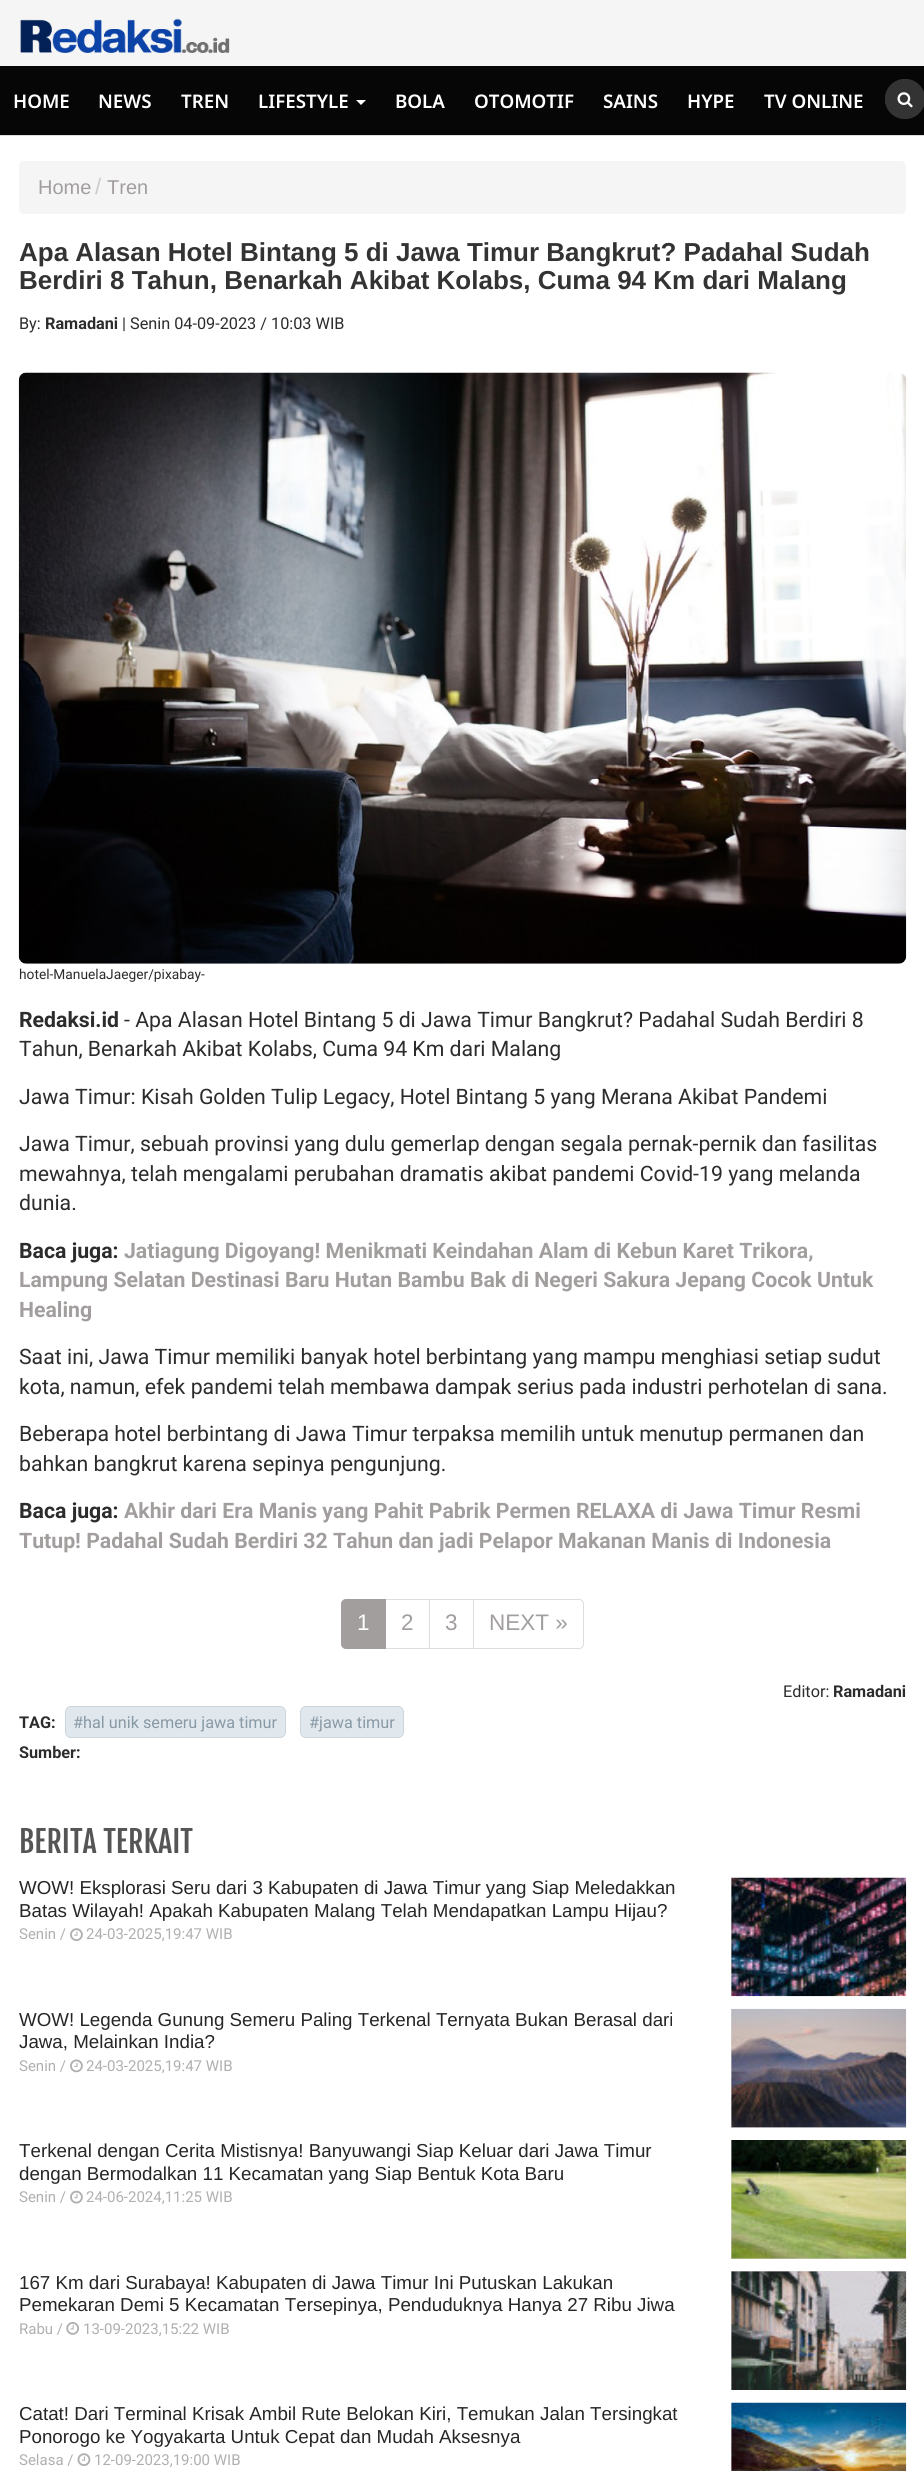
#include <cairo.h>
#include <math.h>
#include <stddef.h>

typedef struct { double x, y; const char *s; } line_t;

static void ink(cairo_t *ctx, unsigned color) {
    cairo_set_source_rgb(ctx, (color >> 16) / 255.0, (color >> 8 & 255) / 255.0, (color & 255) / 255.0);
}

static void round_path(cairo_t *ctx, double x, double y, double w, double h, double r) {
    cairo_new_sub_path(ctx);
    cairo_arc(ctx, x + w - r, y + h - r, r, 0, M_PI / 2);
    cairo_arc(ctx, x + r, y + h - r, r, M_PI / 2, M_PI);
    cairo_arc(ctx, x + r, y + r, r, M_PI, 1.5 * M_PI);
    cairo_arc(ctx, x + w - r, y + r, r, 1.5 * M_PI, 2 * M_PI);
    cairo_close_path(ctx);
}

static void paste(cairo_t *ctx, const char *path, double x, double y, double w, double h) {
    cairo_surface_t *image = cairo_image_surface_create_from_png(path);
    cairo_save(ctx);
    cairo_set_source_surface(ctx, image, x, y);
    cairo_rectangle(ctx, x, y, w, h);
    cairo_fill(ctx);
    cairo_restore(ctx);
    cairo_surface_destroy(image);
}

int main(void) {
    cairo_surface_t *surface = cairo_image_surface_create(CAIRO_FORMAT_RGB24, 924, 2471);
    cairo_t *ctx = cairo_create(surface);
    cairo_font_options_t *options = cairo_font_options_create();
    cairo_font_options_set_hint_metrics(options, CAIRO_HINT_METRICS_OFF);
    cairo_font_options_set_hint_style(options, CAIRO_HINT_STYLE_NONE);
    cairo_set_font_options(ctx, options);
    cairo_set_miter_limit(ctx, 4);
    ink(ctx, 0xFFFFFF);
    cairo_paint(ctx);
    ink(ctx, 0xF5F5F5);
    cairo_rectangle(ctx, 0, 0, 924, 66);
    cairo_fill(ctx);
    paste(ctx, "media/1.png", 20, 18, 210, 35);
    ink(ctx, 0x060606);
    cairo_rectangle(ctx, 0, 66, 924, 69);
    cairo_fill(ctx);
    ink(ctx, 0xDEDEDE);
    cairo_rectangle(ctx, 0, 135, 924, 1);
    cairo_fill(ctx);
    cairo_select_font_face(ctx, "Noto Sans SemiBold", CAIRO_FONT_SLANT_NORMAL, CAIRO_FONT_WEIGHT_NORMAL);
    cairo_set_font_size(ctx, 18.75);
    ink(ctx, 0xFFFFFF);
    {
        static const line_t items[] = {
            {13, 108, "HOME"},
            {98, 108, "NEWS"},
            {181, 108, "TREN"},
            {258, 108, "LIFESTYLE"},
        };
        for (size_t i = 0; i < sizeof items / sizeof *items; i++) {
            cairo_move_to(ctx, items[i].x, items[i].y);
            cairo_show_text(ctx, items[i].s);
        }
    }
    cairo_new_path(ctx);
    cairo_move_to(ctx, 356, 100);
    cairo_line_to(ctx, 366, 100);
    cairo_line_to(ctx, 361, 105);
    cairo_close_path(ctx);
    cairo_fill(ctx);
    {
        static const line_t items[] = {
            {395, 108, "BOLA"},
            {474, 108, "OTOMOTIF"},
            {603, 108, "SAINS"},
            {687, 108, "HYPE"},
            {764, 108, "TV ONLINE"},
        };
        for (size_t i = 0; i < sizeof items / sizeof *items; i++) {
            cairo_move_to(ctx, items[i].x, items[i].y);
            cairo_show_text(ctx, items[i].s);
        }
    }
    cairo_new_path(ctx);
    cairo_arc(ctx, 905, 99, 19.5, 0, 2 * M_PI);
    ink(ctx, 0x333333);
    cairo_set_line_width(ctx, 1);
    cairo_stroke(ctx);
    cairo_arc(ctx, 905, 99, 20, 0, 2 * M_PI);
    cairo_fill(ctx);
    paste(ctx, "media/2.png", 897, 92, 16, 16);
    ink(ctx, 0xF5F5F5);
    round_path(ctx, 19, 161, 887, 53, 5);
    cairo_fill(ctx);
    cairo_select_font_face(ctx, "Liberation Sans", CAIRO_FONT_SLANT_NORMAL, CAIRO_FONT_WEIGHT_NORMAL);
    cairo_set_font_size(ctx, 20);
    ink(ctx, 0xA29E9E);
    cairo_move_to(ctx, 38, 194);
    cairo_show_text(ctx, "Home");
    cairo_set_font_size(ctx, 22.5);
    ink(ctx, 0xCCCCCC);
    cairo_move_to(ctx, 95, 194);
    cairo_show_text(ctx, "/");
    cairo_set_font_size(ctx, 20);
    ink(ctx, 0xA29E9E);
    cairo_move_to(ctx, 107, 194);
    cairo_show_text(ctx, "Tren");
    cairo_select_font_face(ctx, "Liberation Sans", CAIRO_FONT_SLANT_NORMAL, CAIRO_FONT_WEIGHT_BOLD);
    cairo_set_font_size(ctx, 26);
    ink(ctx, 0x333333);
    cairo_move_to(ctx, 19, 261);
    cairo_show_text(ctx, "Apa Alasan Hotel Bintang 5 di Jawa Timur Bangkrut? Padahal Sudah");
    cairo_move_to(ctx, 19, 289);
    cairo_show_text(ctx, "Berdiri 8 Tahun, Benarkah Akibat Kolabs, Cuma 94 Km dari Malang");
    cairo_select_font_face(ctx, "Roboto", CAIRO_FONT_SLANT_NORMAL, CAIRO_FONT_WEIGHT_NORMAL);
    cairo_set_font_size(ctx, 16.25);
    ink(ctx, 0x2D2C2C);
    cairo_move_to(ctx, 19, 329);
    cairo_show_text(ctx, "By:");
    cairo_select_font_face(ctx, "Roboto", CAIRO_FONT_SLANT_NORMAL, CAIRO_FONT_WEIGHT_BOLD);
    cairo_move_to(ctx, 45, 329);
    cairo_show_text(ctx, "Ramadani");
    cairo_select_font_face(ctx, "Roboto", CAIRO_FONT_SLANT_NORMAL, CAIRO_FONT_WEIGHT_NORMAL);
    cairo_move_to(ctx, 122, 329);
    cairo_show_text(ctx, "| Senin 04-09-2023 / 10:03 WIB");
    paste(ctx, "media/3.png", 18, 372, 889, 592);
    cairo_set_font_size(ctx, 13.75);
    cairo_move_to(ctx, 19, 979);
    cairo_show_text(ctx, "hotel-ManuelaJaeger/pixabay-");
    cairo_select_font_face(ctx, "Roboto", CAIRO_FONT_SLANT_NORMAL, CAIRO_FONT_WEIGHT_BOLD);
    cairo_set_font_size(ctx, 21.25);
    cairo_move_to(ctx, 19, 1027);
    cairo_show_text(ctx, "Redaksi.id");
    cairo_select_font_face(ctx, "Roboto", CAIRO_FONT_SLANT_NORMAL, CAIRO_FONT_WEIGHT_NORMAL);
    {
        static const line_t items[] = {
            {124, 1027, "- Apa Alasan Hotel Bintang 5 di Jawa Timur Bangkrut? Padahal Sudah Berdiri 8"},
            {19, 1056, "Tahun, Benarkah Akibat Kolabs, Cuma 94 Km dari Malang"},
            {19, 1104, "Jawa Timur: Kisah Golden Tulip Legacy, Hotel Bintang 5 yang Merana Akibat Pandemi"},
            {19, 1151, "Jawa Timur, sebuah provinsi yang dulu gemerlap dengan segala pernak-pernik dan fasilitas"},
            {19, 1181, "mewahnya, telah mengalami perubahan dramatis akibat pandemi Covid-19 yang melanda"},
            {19, 1210, "dunia."},
        };
        for (size_t i = 0; i < sizeof items / sizeof *items; i++) {
            cairo_move_to(ctx, items[i].x, items[i].y);
            cairo_show_text(ctx, items[i].s);
        }
    }
    cairo_select_font_face(ctx, "Roboto", CAIRO_FONT_SLANT_NORMAL, CAIRO_FONT_WEIGHT_BOLD);
    cairo_move_to(ctx, 19, 1258);
    cairo_show_text(ctx, "Baca juga:");
    ink(ctx, 0xA29E9E);
    {
        static const line_t items[] = {
            {124, 1258, "Jatiagung Digoyang! Menikmati Keindahan Alam di Kebun Karet Trikora,"},
            {19, 1287, "Lampung Selatan Destinasi Baru Hutan Bambu Bak di Negeri Sakura Jepang Cocok Untuk"},
            {19, 1317, "Healing"},
        };
        for (size_t i = 0; i < sizeof items / sizeof *items; i++) {
            cairo_move_to(ctx, items[i].x, items[i].y);
            cairo_show_text(ctx, items[i].s);
        }
    }
    cairo_select_font_face(ctx, "Roboto", CAIRO_FONT_SLANT_NORMAL, CAIRO_FONT_WEIGHT_NORMAL);
    ink(ctx, 0x2D2C2C);
    {
        static const line_t items[] = {
            {19, 1364, "Saat ini, Jawa Timur memiliki banyak hotel berbintang yang mampu menghiasi setiap sudut"},
            {19, 1394, "kota, namun, efek pandemi telah membawa dampak serius pada industri perhotelan di sana."},
            {19, 1441, "Beberapa hotel berbintang di Jawa Timur terpaksa memilih untuk menutup permanen dan"},
            {19, 1471, "bahkan bangkrut karena sepinya pengunjung."},
        };
        for (size_t i = 0; i < sizeof items / sizeof *items; i++) {
            cairo_move_to(ctx, items[i].x, items[i].y);
            cairo_show_text(ctx, items[i].s);
        }
    }
    cairo_select_font_face(ctx, "Roboto", CAIRO_FONT_SLANT_NORMAL, CAIRO_FONT_WEIGHT_BOLD);
    cairo_move_to(ctx, 19, 1518);
    cairo_show_text(ctx, "Baca juga:");
    ink(ctx, 0xA29E9E);
    cairo_move_to(ctx, 124, 1518);
    cairo_show_text(ctx, "Akhir dari Era Manis yang Pahit Pabrik Permen RELAXA di Jawa Timur Resmi");
    cairo_move_to(ctx, 19, 1548);
    cairo_show_text(ctx, "Tutup! Padahal Sudah Berdiri 32 Tahun dan jadi Pelapor Makanan Manis di Indonesia");
    cairo_rectangle(ctx, 385.5, 1599.5, 44, 49);
    ink(ctx, 0xDDDDDD);
    cairo_stroke(ctx);
    ink(ctx, 0xA29E9E);
    cairo_new_path(ctx);
    cairo_move_to(ctx, 346, 1599.5);
    cairo_line_to(ctx, 385.5, 1599.5);
    cairo_line_to(ctx, 385.5, 1648.5);
    cairo_line_to(ctx, 346, 1648.5);
    cairo_curve_to(ctx, 343.5, 1648.5, 341.5, 1646.5, 341.5, 1644);
    cairo_line_to(ctx, 341.5, 1604);
    cairo_curve_to(ctx, 341.5, 1601.5, 343.5, 1599.5, 346, 1599.5);
    cairo_close_path(ctx);
    cairo_fill_preserve(ctx);
    cairo_stroke(ctx);
    cairo_select_font_face(ctx, "Liberation Sans", CAIRO_FONT_SLANT_NORMAL, CAIRO_FONT_WEIGHT_NORMAL);
    cairo_set_font_size(ctx, 22.5);
    ink(ctx, 0xFFFFFF);
    cairo_move_to(ctx, 357, 1630);
    cairo_show_text(ctx, "1");
    ink(ctx, 0xA29E9E);
    cairo_move_to(ctx, 401, 1630);
    cairo_show_text(ctx, "2");
    cairo_rectangle(ctx, 429.5, 1599.5, 44, 49);
    ink(ctx, 0xDDDDDD);
    cairo_stroke(ctx);
    ink(ctx, 0xA29E9E);
    cairo_move_to(ctx, 445, 1630);
    cairo_show_text(ctx, "3");
    ink(ctx, 0xFFFFFF);
    cairo_new_path(ctx);
    cairo_move_to(ctx, 473.5, 1599.5);
    cairo_line_to(ctx, 579, 1599.5);
    cairo_curve_to(ctx, 581.5, 1599.5, 583.5, 1601.5, 583.5, 1604);
    cairo_line_to(ctx, 583.5, 1644);
    cairo_curve_to(ctx, 583.5, 1646.5, 581.5, 1648.5, 579, 1648.5);
    cairo_line_to(ctx, 473.5, 1648.5);
    cairo_close_path(ctx);
    cairo_fill_preserve(ctx);
    ink(ctx, 0xDDDDDD);
    cairo_stroke(ctx);
    ink(ctx, 0xA29E9E);
    cairo_move_to(ctx, 489, 1630);
    cairo_show_text(ctx, "NEXT »");
    cairo_select_font_face(ctx, "Roboto", CAIRO_FONT_SLANT_NORMAL, CAIRO_FONT_WEIGHT_NORMAL);
    cairo_set_font_size(ctx, 16.25);
    ink(ctx, 0x2D2C2C);
    cairo_move_to(ctx, 783, 1697);
    cairo_show_text(ctx, "Editor:");
    cairo_select_font_face(ctx, "Roboto", CAIRO_FONT_SLANT_NORMAL, CAIRO_FONT_WEIGHT_BOLD);
    cairo_move_to(ctx, 833, 1697);
    cairo_show_text(ctx, "Ramadani");
    cairo_move_to(ctx, 19, 1728);
    cairo_show_text(ctx, "TAG:");
    ink(ctx, 0xE1E8ED);
    round_path(ctx, 65.5, 1706.5, 220, 31, 5.5);
    cairo_fill_preserve(ctx);
    ink(ctx, 0xCCD6DD);
    cairo_stroke(ctx);
    cairo_select_font_face(ctx, "Roboto", CAIRO_FONT_SLANT_NORMAL, CAIRO_FONT_WEIGHT_NORMAL);
    ink(ctx, 0x8899A6);
    cairo_move_to(ctx, 73, 1728);
    cairo_show_text(ctx, "#hal unik semeru jawa timur");
    ink(ctx, 0xE1E8ED);
    round_path(ctx, 300.5, 1706.5, 103, 31, 5.5);
    cairo_fill_preserve(ctx);
    ink(ctx, 0xCCD6DD);
    cairo_stroke(ctx);
    ink(ctx, 0x8899A6);
    cairo_move_to(ctx, 309, 1728);
    cairo_show_text(ctx, "#jawa timur");
    cairo_select_font_face(ctx, "Roboto", CAIRO_FONT_SLANT_NORMAL, CAIRO_FONT_WEIGHT_BOLD);
    ink(ctx, 0x2D2C2C);
    cairo_move_to(ctx, 19, 1758);
    cairo_show_text(ctx, "Sumber:");
    cairo_select_font_face(ctx, "Fjalla One", CAIRO_FONT_SLANT_NORMAL, CAIRO_FONT_WEIGHT_NORMAL);
    cairo_set_font_size(ctx, 30);
    ink(ctx, 0x555555);
    cairo_move_to(ctx, 19, 1853);
    cairo_show_text(ctx, "BERITA TERKAIT");
    cairo_select_font_face(ctx, "Liberation Sans", CAIRO_FONT_SLANT_NORMAL, CAIRO_FONT_WEIGHT_NORMAL);
    cairo_set_font_size(ctx, 18.75);
    ink(ctx, 0x262626);
    cairo_move_to(ctx, 19, 1894);
    cairo_show_text(ctx, "WOW! Eksplorasi Seru dari 3 Kabupaten di Jawa Timur yang Siap Meledakkan");
    cairo_move_to(ctx, 19, 1917);
    cairo_show_text(ctx, "Batas Wilayah! Apakah Kabupaten Malang Telah Mendapatkan Lampu Hijau?");
    cairo_select_font_face(ctx, "Roboto", CAIRO_FONT_SLANT_NORMAL, CAIRO_FONT_WEIGHT_NORMAL);
    cairo_set_font_size(ctx, 15);
    ink(ctx, 0xB1AFAF);
    cairo_move_to(ctx, 19, 1939);
    cairo_show_text(ctx, "Senin /");
    paste(ctx, "media/4.png", 70, 1928, 13, 13);
    cairo_move_to(ctx, 86, 1939);
    cairo_show_text(ctx, "24-03-2025,19:47 WIB");
    ink(ctx, 0xD7D7D7);
    cairo_rectangle(ctx, 731, 1878, 1, 118);
    cairo_fill(ctx);
    paste(ctx, "media/5.png", 731, 1877, 176, 120);
    cairo_select_font_face(ctx, "Liberation Sans", CAIRO_FONT_SLANT_NORMAL, CAIRO_FONT_WEIGHT_NORMAL);
    cairo_set_font_size(ctx, 18.75);
    ink(ctx, 0x262626);
    cairo_move_to(ctx, 19, 2026);
    cairo_show_text(ctx, "WOW! Legenda Gunung Semeru Paling Terkenal Ternyata Bukan Berasal dari");
    cairo_move_to(ctx, 19, 2048);
    cairo_show_text(ctx, "Jawa, Melainkan India?");
    cairo_select_font_face(ctx, "Roboto", CAIRO_FONT_SLANT_NORMAL, CAIRO_FONT_WEIGHT_NORMAL);
    cairo_set_font_size(ctx, 15);
    ink(ctx, 0xB1AFAF);
    cairo_move_to(ctx, 19, 2071);
    cairo_show_text(ctx, "Senin /");
    paste(ctx, "media/6.png", 70, 2059, 13, 14);
    cairo_move_to(ctx, 86, 2071);
    cairo_show_text(ctx, "24-03-2025,19:47 WIB");
    ink(ctx, 0xD7D7D7);
    cairo_rectangle(ctx, 731, 2009, 175, 119);
    cairo_fill(ctx);
    paste(ctx, "media/7.png", 731, 2008, 176, 120);
    cairo_select_font_face(ctx, "Liberation Sans", CAIRO_FONT_SLANT_NORMAL, CAIRO_FONT_WEIGHT_NORMAL);
    cairo_set_font_size(ctx, 18.75);
    ink(ctx, 0x262626);
    cairo_move_to(ctx, 19, 2157);
    cairo_show_text(ctx, "Terkenal dengan Cerita Mistisnya! Banyuwangi Siap Keluar dari Jawa Timur");
    cairo_move_to(ctx, 19, 2180);
    cairo_show_text(ctx, "dengan Bermodalkan 11 Kecamatan yang Siap Bentuk Kota Baru");
    cairo_select_font_face(ctx, "Roboto", CAIRO_FONT_SLANT_NORMAL, CAIRO_FONT_WEIGHT_NORMAL);
    cairo_set_font_size(ctx, 15);
    ink(ctx, 0xB1AFAF);
    cairo_move_to(ctx, 19, 2202);
    cairo_show_text(ctx, "Senin /");
    paste(ctx, "media/8.png", 70, 2190, 13, 14);
    cairo_move_to(ctx, 86, 2202);
    cairo_show_text(ctx, "24-06-2024,11:25 WIB");
    ink(ctx, 0xD7D7D7);
    cairo_rectangle(ctx, 731, 2140, 175, 119);
    cairo_fill(ctx);
    paste(ctx, "media/9.png", 731, 2140, 176, 119);
    cairo_select_font_face(ctx, "Liberation Sans", CAIRO_FONT_SLANT_NORMAL, CAIRO_FONT_WEIGHT_NORMAL);
    cairo_set_font_size(ctx, 18.75);
    ink(ctx, 0x262626);
    cairo_move_to(ctx, 19, 2289);
    cairo_show_text(ctx, "167 Km dari Surabaya! Kabupaten di Jawa Timur Ini Putuskan Lakukan");
    cairo_move_to(ctx, 19, 2311);
    cairo_show_text(ctx, "Pemekaran Demi 5 Kecamatan Tersepinya, Penduduknya Hanya 27 Ribu Jiwa");
    cairo_select_font_face(ctx, "Roboto", CAIRO_FONT_SLANT_NORMAL, CAIRO_FONT_WEIGHT_NORMAL);
    cairo_set_font_size(ctx, 15);
    ink(ctx, 0xB1AFAF);
    cairo_move_to(ctx, 19, 2334);
    cairo_show_text(ctx, "Rabu /");
    paste(ctx, "media/10.png", 66, 2322, 14, 13);
    cairo_move_to(ctx, 83, 2334);
    cairo_show_text(ctx, "13-09-2023,15:22 WIB");
    ink(ctx, 0xD7D7D7);
    cairo_rectangle(ctx, 731, 2271, 175, 119);
    cairo_fill(ctx);
    paste(ctx, "media/11.png", 731, 2271, 176, 119);
    cairo_select_font_face(ctx, "Liberation Sans", CAIRO_FONT_SLANT_NORMAL, CAIRO_FONT_WEIGHT_NORMAL);
    cairo_set_font_size(ctx, 18.75);
    ink(ctx, 0x262626);
    cairo_move_to(ctx, 19, 2420);
    cairo_show_text(ctx, "Catat! Dari Terminal Krisak Ambil Rute Belokan Kiri, Temukan Jalan Tersingkat");
    cairo_move_to(ctx, 19, 2443);
    cairo_show_text(ctx, "Ponorogo ke Yogyakarta Untuk Cepat dan Mudah Aksesnya");
    cairo_select_font_face(ctx, "Roboto", CAIRO_FONT_SLANT_NORMAL, CAIRO_FONT_WEIGHT_NORMAL);
    cairo_set_font_size(ctx, 15);
    ink(ctx, 0xB1AFAF);
    cairo_move_to(ctx, 19, 2465);
    cairo_show_text(ctx, "Selasa /");
    paste(ctx, "media/12.png", 77, 2453, 14, 13);
    cairo_move_to(ctx, 94, 2465);
    cairo_show_text(ctx, "12-09-2023,19:00 WIB");
    ink(ctx, 0xD7D7D7);
    cairo_rectangle(ctx, 731, 2403, 1, 68);
    cairo_fill(ctx);
    paste(ctx, "media/13.png", 731, 2402, 176, 69);
    cairo_surface_write_to_png(surface, "image.png");
    cairo_font_options_destroy(options);
    cairo_destroy(ctx);
    cairo_surface_destroy(surface);
    return 0;
}
